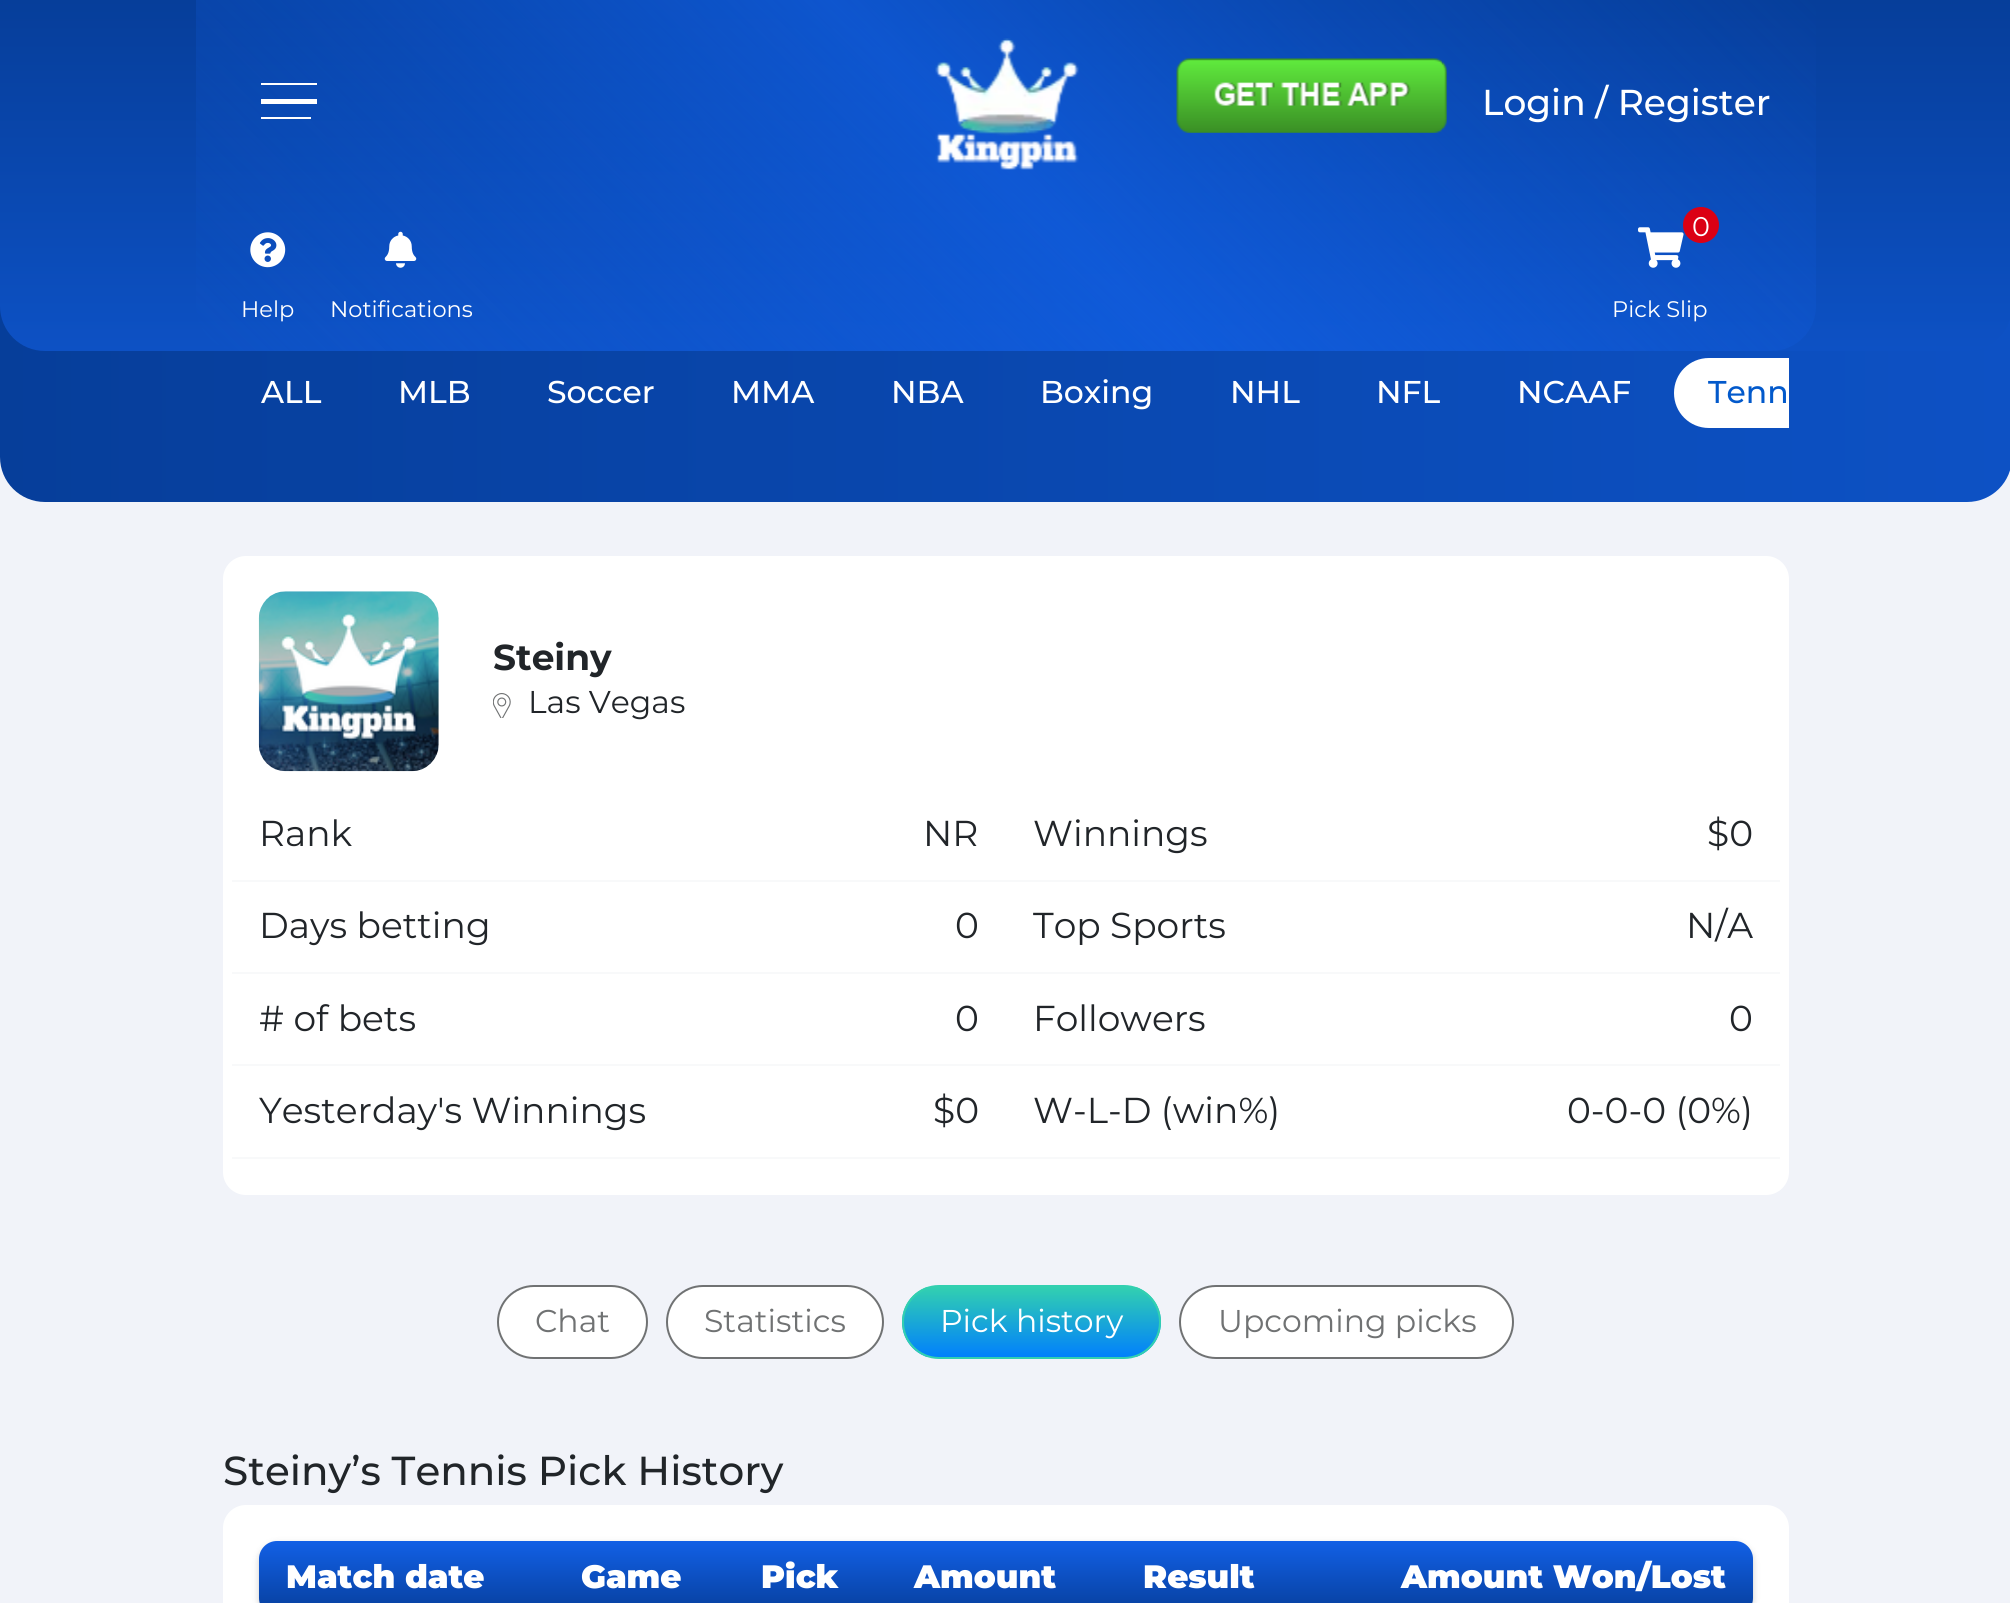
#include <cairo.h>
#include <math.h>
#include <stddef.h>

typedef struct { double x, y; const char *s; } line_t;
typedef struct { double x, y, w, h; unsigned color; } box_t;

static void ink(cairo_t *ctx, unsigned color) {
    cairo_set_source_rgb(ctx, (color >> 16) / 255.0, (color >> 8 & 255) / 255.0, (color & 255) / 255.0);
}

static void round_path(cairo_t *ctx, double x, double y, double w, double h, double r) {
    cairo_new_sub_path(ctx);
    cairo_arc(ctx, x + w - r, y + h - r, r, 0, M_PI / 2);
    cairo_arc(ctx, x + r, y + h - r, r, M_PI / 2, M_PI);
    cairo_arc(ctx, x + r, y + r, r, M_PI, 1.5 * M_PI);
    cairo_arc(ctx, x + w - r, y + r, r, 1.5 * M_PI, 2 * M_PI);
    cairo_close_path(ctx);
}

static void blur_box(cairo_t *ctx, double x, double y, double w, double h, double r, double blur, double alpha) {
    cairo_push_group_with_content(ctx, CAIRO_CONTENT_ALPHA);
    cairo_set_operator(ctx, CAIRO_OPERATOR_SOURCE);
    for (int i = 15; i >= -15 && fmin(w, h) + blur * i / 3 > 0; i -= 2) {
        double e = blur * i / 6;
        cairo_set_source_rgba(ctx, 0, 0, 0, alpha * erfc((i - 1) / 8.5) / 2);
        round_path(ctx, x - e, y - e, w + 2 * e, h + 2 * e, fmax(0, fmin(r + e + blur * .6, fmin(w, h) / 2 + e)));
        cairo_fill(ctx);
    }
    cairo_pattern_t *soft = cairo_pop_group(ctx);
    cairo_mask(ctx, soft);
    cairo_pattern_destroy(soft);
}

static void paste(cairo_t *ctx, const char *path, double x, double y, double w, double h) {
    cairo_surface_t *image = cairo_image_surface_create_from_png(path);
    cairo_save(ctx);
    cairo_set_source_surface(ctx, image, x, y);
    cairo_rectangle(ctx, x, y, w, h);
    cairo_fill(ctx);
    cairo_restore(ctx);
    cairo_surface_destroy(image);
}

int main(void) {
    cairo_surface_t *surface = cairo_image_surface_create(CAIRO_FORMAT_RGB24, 2010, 1603);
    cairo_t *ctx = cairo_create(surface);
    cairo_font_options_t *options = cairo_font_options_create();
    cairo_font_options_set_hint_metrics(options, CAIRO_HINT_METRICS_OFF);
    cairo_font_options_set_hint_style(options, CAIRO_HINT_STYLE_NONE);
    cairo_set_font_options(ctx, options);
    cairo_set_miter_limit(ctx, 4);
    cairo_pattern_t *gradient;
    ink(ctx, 0xF1F3F9);
    cairo_paint(ctx);
    gradient = cairo_pattern_create_linear(0, 235, 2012, 235);
    cairo_pattern_add_color_stop_rgba(gradient, 0, 0.024, 0.243, 0.604, 1);
    cairo_pattern_add_color_stop_rgba(gradient, 1, 0.051, 0.318, 0.769, 1);
    cairo_set_source(ctx, gradient);
    cairo_pattern_destroy(gradient);
    cairo_new_path(ctx);
    cairo_move_to(ctx, 0, -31);
    cairo_line_to(ctx, 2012, -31);
    cairo_line_to(ctx, 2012, 457);
    cairo_curve_to(ctx, 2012, 482, 1992, 502, 1967, 502);
    cairo_line_to(ctx, 45, 502);
    cairo_curve_to(ctx, 20, 502, 0, 482, 0, 457);
    cairo_close_path(ctx);
    cairo_fill(ctx);
    gradient = cairo_pattern_create_linear(1006, 0, 1006, 351);
    cairo_pattern_add_color_stop_rgba(gradient, 0, 0.024, 0.243, 0.604, 1);
    cairo_pattern_add_color_stop_rgba(gradient, 1, 0.051, 0.318, 0.769, 1);
    cairo_set_source(ctx, gradient);
    cairo_pattern_destroy(gradient);
    cairo_new_path(ctx);
    cairo_move_to(ctx, 0, 0);
    cairo_line_to(ctx, 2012, 0);
    cairo_line_to(ctx, 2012, 306);
    cairo_curve_to(ctx, 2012, 331, 1992, 351, 1967, 351);
    cairo_line_to(ctx, 45, 351);
    cairo_curve_to(ctx, 20, 351, 0, 331, 0, 306);
    cairo_close_path(ctx);
    cairo_fill(ctx);
    gradient = cairo_pattern_create_linear(513, 668, 1499, -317);
    cairo_pattern_add_color_stop_rgba(gradient, 0, 0.067, 0.373, 0.894, 0);
    cairo_pattern_add_color_stop_rgba(gradient, 0.25, 0.067, 0.373, 0.894, 0.3);
    cairo_pattern_add_color_stop_rgba(gradient, 0.5, 0.067, 0.373, 0.894, 0.7);
    cairo_pattern_add_color_stop_rgba(gradient, 0.75, 0.067, 0.373, 0.894, 0.3);
    cairo_pattern_add_color_stop_rgba(gradient, 1, 0.067, 0.373, 0.894, 0);
    cairo_set_source(ctx, gradient);
    cairo_pattern_destroy(gradient);
    cairo_new_path(ctx);
    cairo_move_to(ctx, 196, 0);
    cairo_line_to(ctx, 1816, 0);
    cairo_line_to(ctx, 1816, 306);
    cairo_curve_to(ctx, 1816, 331, 1796, 351, 1771, 351);
    cairo_line_to(ctx, 241, 351);
    cairo_curve_to(ctx, 216, 351, 196, 331, 196, 306);
    cairo_close_path(ctx);
    cairo_fill(ctx);
    {
        static const box_t items[] = {
            {261, 83, 56, 2, 0xFFFFFF},
            {261, 99, 56, 5, 0xFFFFFF},
            {261, 117, 50, 2, 0xFFFFFF},
        };
        for (size_t i = 0; i < sizeof items / sizeof *items; i++) {
            ink(ctx, items[i].color);
            cairo_rectangle(ctx, items[i].x, items[i].y, items[i].w, items[i].h);
            cairo_fill(ctx);
        }
    }
    paste(ctx, "media/1.png", 935, 38, 144, 132);
    paste(ctx, "media/2.png", 1176, 58, 271, 75);
    cairo_select_font_face(ctx, "Montserrat Medium", CAIRO_FONT_SLANT_NORMAL, CAIRO_FONT_WEIGHT_NORMAL);
    cairo_set_font_size(ctx, 36);
    cairo_move_to(ctx, 1482, 115);
    cairo_show_text(ctx, "Login / Register");
    paste(ctx, "media/3.png", 250, 232, 36, 36);
    cairo_select_font_face(ctx, "Montserrat", CAIRO_FONT_SLANT_NORMAL, CAIRO_FONT_WEIGHT_NORMAL);
    cairo_set_font_size(ctx, 22.5);
    cairo_move_to(ctx, 241, 317);
    cairo_show_text(ctx, "Help");
    paste(ctx, "media/4.png", 384, 231, 33, 37);
    cairo_move_to(ctx, 330, 317);
    cairo_show_text(ctx, "Notifications");
    paste(ctx, "media/5.png", 1638, 227, 46, 41);
    ink(ctx, 0xDB0014);
    cairo_arc(ctx, 1701, 225, 18, 0, 2 * M_PI);
    cairo_fill(ctx);
    cairo_set_font_size(ctx, 27);
    ink(ctx, 0xFFFFFF);
    cairo_move_to(ctx, 1692, 236);
    cairo_show_text(ctx, "0");
    cairo_set_font_size(ctx, 22.5);
    cairo_move_to(ctx, 1612, 317);
    cairo_show_text(ctx, "Pick Slip");
    cairo_select_font_face(ctx, "Montserrat Medium", CAIRO_FONT_SLANT_NORMAL, CAIRO_FONT_WEIGHT_NORMAL);
    cairo_set_font_size(ctx, 31.5);
    {
        static const line_t items[] = {
            {261, 403, "ALL"},
            {398, 403, "MLB"},
            {547, 403, "Soccer"},
            {731, 403, "MMA"},
            {891, 403, "NBA"},
            {1040, 403, "Boxing"},
            {1230, 403, "NHL"},
            {1376, 403, "NFL"},
            {1517, 403, "NCAAF"},
        };
        for (size_t i = 0; i < sizeof items / sizeof *items; i++) {
            cairo_move_to(ctx, items[i].x, items[i].y);
            cairo_show_text(ctx, items[i].s);
        }
    }
    cairo_new_path(ctx);
    cairo_move_to(ctx, 1709, 358);
    cairo_line_to(ctx, 1789, 358);
    cairo_line_to(ctx, 1789, 428);
    cairo_line_to(ctx, 1709, 428);
    cairo_curve_to(ctx, 1689.5, 428, 1674, 412.5, 1674, 393);
    cairo_curve_to(ctx, 1674, 373.5, 1689.5, 358, 1709, 358);
    cairo_close_path(ctx);
    cairo_fill(ctx);
    ink(ctx, 0x0259CB);
    cairo_move_to(ctx, 1708, 403);
    cairo_show_text(ctx, "Tenn");
    ink(ctx, 0xFFFFFF);
    round_path(ctx, 223, 556, 1566, 639, 23);
    cairo_fill(ctx);
    paste(ctx, "media/6.png", 258, 591, 181, 181);
    cairo_select_font_face(ctx, "Montserrat", CAIRO_FONT_SLANT_NORMAL, CAIRO_FONT_WEIGHT_BOLD);
    cairo_set_font_size(ctx, 36);
    ink(ctx, 0x212529);
    cairo_move_to(ctx, 493, 670);
    cairo_show_text(ctx, "Steiny");
    paste(ctx, "media/7.png", 493, 693, 18, 25);
    cairo_select_font_face(ctx, "Montserrat", CAIRO_FONT_SLANT_NORMAL, CAIRO_FONT_WEIGHT_NORMAL);
    cairo_set_font_size(ctx, 31.5);
    cairo_move_to(ctx, 528, 713);
    cairo_show_text(ctx, "Las Vegas");
    ink(ctx, 0xF8F9FA);
    cairo_rectangle(ctx, 232, 880, 1548, 2);
    cairo_fill(ctx);
    cairo_set_font_size(ctx, 36);
    ink(ctx, 0x212529);
    {
        static const line_t items[] = {
            {259, 846, "Rank"},
            {923, 846, "NR"},
            {1033, 846, "Winnings"},
            {1707, 846, "$0"},
        };
        for (size_t i = 0; i < sizeof items / sizeof *items; i++) {
            cairo_move_to(ctx, items[i].x, items[i].y);
            cairo_show_text(ctx, items[i].s);
        }
    }
    ink(ctx, 0xF8F9FA);
    cairo_rectangle(ctx, 232, 972, 1548, 2);
    cairo_fill(ctx);
    ink(ctx, 0x212529);
    {
        static const line_t items[] = {
            {259, 938, "Days betting"},
            {955, 938, "0"},
            {1033, 938, "Top Sports"},
            {1686, 938, "N/A"},
        };
        for (size_t i = 0; i < sizeof items / sizeof *items; i++) {
            cairo_move_to(ctx, items[i].x, items[i].y);
            cairo_show_text(ctx, items[i].s);
        }
    }
    ink(ctx, 0xF8F9FA);
    cairo_rectangle(ctx, 232, 1064, 1548, 2);
    cairo_fill(ctx);
    ink(ctx, 0x212529);
    {
        static const line_t items[] = {
            {259, 1031, "# of bets"},
            {955, 1031, "0"},
            {1033, 1031, "Followers"},
            {1729, 1031, "0"},
        };
        for (size_t i = 0; i < sizeof items / sizeof *items; i++) {
            cairo_move_to(ctx, items[i].x, items[i].y);
            cairo_show_text(ctx, items[i].s);
        }
    }
    ink(ctx, 0xF8F9FA);
    cairo_rectangle(ctx, 232, 1157, 1548, 2);
    cairo_fill(ctx);
    ink(ctx, 0x212529);
    {
        static const line_t items[] = {
            {259, 1123, "Yesterday's Winnings"},
            {933, 1123, "$0"},
            {1033, 1123, "W-L-D (win%)"},
            {1567, 1123, "0-0-0 (0%)"},
        };
        for (size_t i = 0; i < sizeof items / sizeof *items; i++) {
            cairo_move_to(ctx, items[i].x, items[i].y);
            cairo_show_text(ctx, items[i].s);
        }
    }
    ink(ctx, 0xFFFFFF);
    round_path(ctx, 498, 1286, 149, 72, 36);
    cairo_fill_preserve(ctx);
    ink(ctx, 0x707273);
    cairo_stroke(ctx);
    cairo_set_font_size(ctx, 31.5);
    cairo_move_to(ctx, 535, 1332);
    cairo_show_text(ctx, "Chat");
    ink(ctx, 0xFFFFFF);
    round_path(ctx, 667, 1286, 216, 72, 36);
    cairo_fill_preserve(ctx);
    ink(ctx, 0x707273);
    cairo_stroke(ctx);
    cairo_move_to(ctx, 704, 1332);
    cairo_show_text(ctx, "Statistics");
    cairo_save(ctx);
    round_path(ctx, 902, 1285, 259, 74, 37);
    cairo_clip(ctx);
    gradient = cairo_pattern_create_linear(1032, 1357, 1032, 1287);
    cairo_pattern_add_color_stop_rgba(gradient, 0, 0.004, 0.502, 0.988, 1);
    cairo_pattern_add_color_stop_rgba(gradient, 1, 0.196, 0.816, 0.69, 1);
    cairo_set_source(ctx, gradient);
    cairo_pattern_destroy(gradient);
    cairo_rectangle(ctx, 902, 1287, 259, 70);
    cairo_fill(ctx);
    cairo_restore(ctx);
    round_path(ctx, 903, 1286, 257, 72, 36);
    ink(ctx, 0x32D0B0);
    cairo_stroke(ctx);
    ink(ctx, 0xFFFFFF);
    cairo_move_to(ctx, 940, 1332);
    cairo_show_text(ctx, "Pick history");
    round_path(ctx, 1180, 1286, 333, 72, 36);
    cairo_fill_preserve(ctx);
    ink(ctx, 0x707273);
    cairo_stroke(ctx);
    cairo_move_to(ctx, 1218, 1332);
    cairo_show_text(ctx, "Upcoming picks");
    cairo_select_font_face(ctx, "Montserrat Medium", CAIRO_FONT_SLANT_NORMAL, CAIRO_FONT_WEIGHT_NORMAL);
    cairo_set_font_size(ctx, 40.5);
    ink(ctx, 0x212529);
    cairo_move_to(ctx, 223, 1485);
    cairo_show_text(ctx, "Steiny’s Tennis Pick History");
    ink(ctx, 0xFFFFFF);
    round_path(ctx, 223, 1505, 1566, 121, 23);
    cairo_fill(ctx);
    ink(ctx, 0x000000);
    blur_box(ctx, 259, 1544, 1494, 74, 18, 3.5, 0.2);
    gradient = cairo_pattern_create_linear(1006, 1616, 1006, 1541);
    cairo_pattern_add_color_stop_rgba(gradient, 0, 0.024, 0.243, 0.604, 1);
    cairo_pattern_add_color_stop_rgba(gradient, 1, 0.071, 0.376, 0.902, 1);
    cairo_set_source(ctx, gradient);
    cairo_pattern_destroy(gradient);
    round_path(ctx, 259, 1541, 1494, 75, 18);
    cairo_fill(ctx);
    cairo_select_font_face(ctx, "Montserrat Black", CAIRO_FONT_SLANT_NORMAL, CAIRO_FONT_WEIGHT_NORMAL);
    cairo_set_font_size(ctx, 32.4);
    ink(ctx, 0xFFFFFF);
    {
        static const line_t items[] = {
            {286, 1588, "Match date"},
            {581, 1588, "Game"},
            {761, 1588, "Pick"},
            {914, 1588, "Amount"},
            {1143, 1588, "Result"},
            {1401, 1588, "Amount Won/Lost"},
        };
        for (size_t i = 0; i < sizeof items / sizeof *items; i++) {
            cairo_move_to(ctx, items[i].x, items[i].y);
            cairo_show_text(ctx, items[i].s);
        }
    }
    cairo_surface_write_to_png(surface, "image.png");
    cairo_font_options_destroy(options);
    cairo_destroy(ctx);
    cairo_surface_destroy(surface);
    return 0;
}
